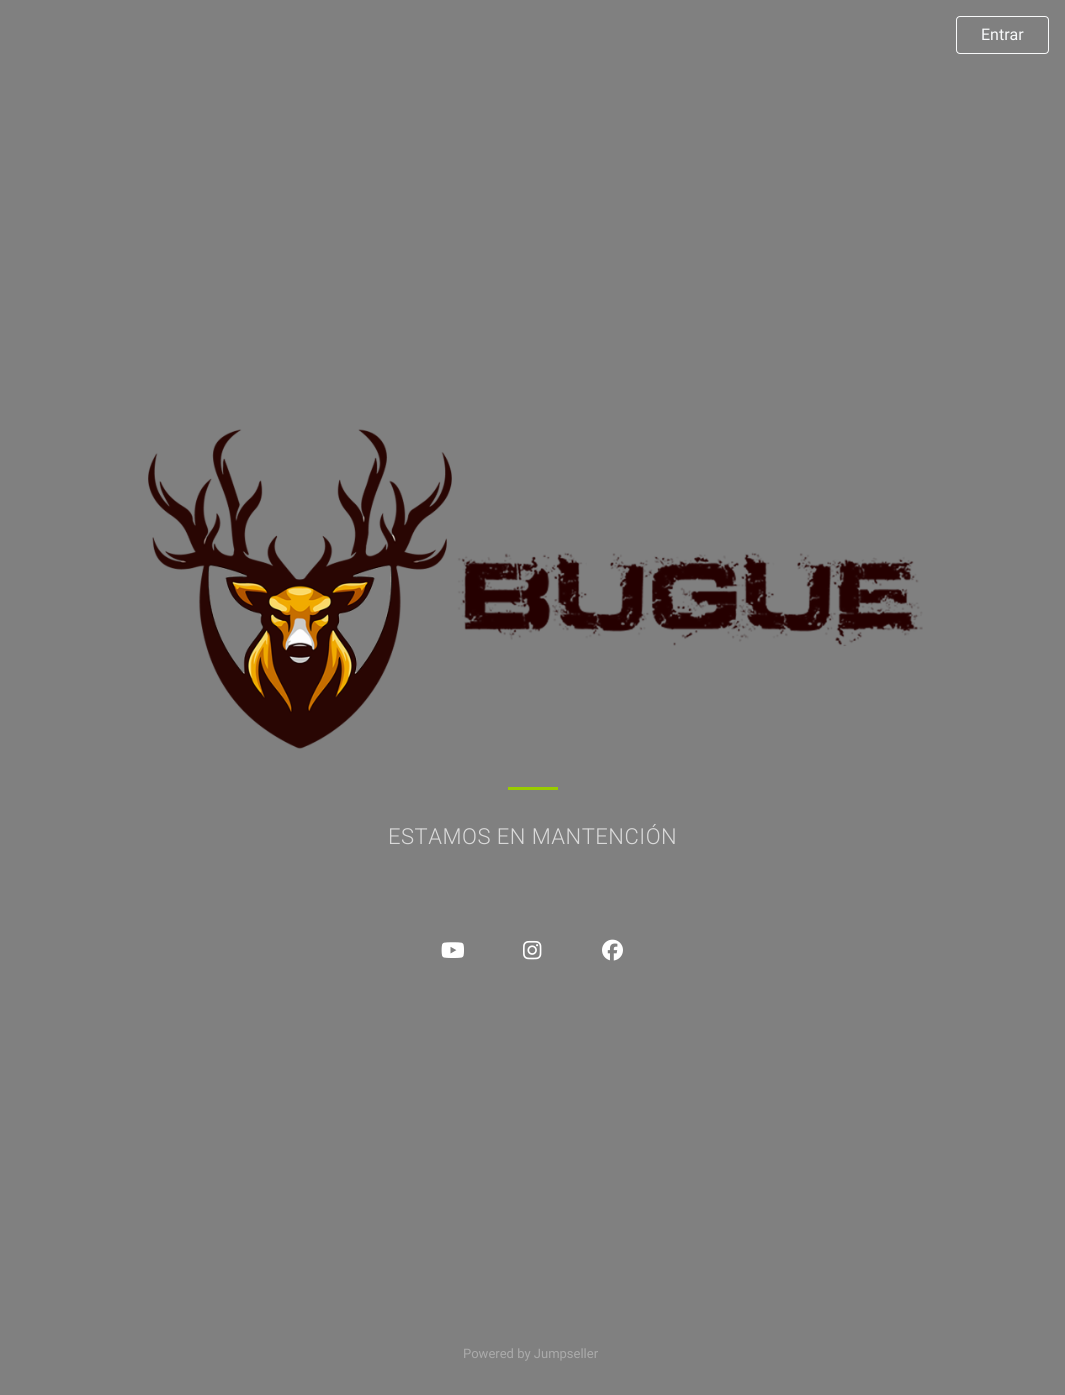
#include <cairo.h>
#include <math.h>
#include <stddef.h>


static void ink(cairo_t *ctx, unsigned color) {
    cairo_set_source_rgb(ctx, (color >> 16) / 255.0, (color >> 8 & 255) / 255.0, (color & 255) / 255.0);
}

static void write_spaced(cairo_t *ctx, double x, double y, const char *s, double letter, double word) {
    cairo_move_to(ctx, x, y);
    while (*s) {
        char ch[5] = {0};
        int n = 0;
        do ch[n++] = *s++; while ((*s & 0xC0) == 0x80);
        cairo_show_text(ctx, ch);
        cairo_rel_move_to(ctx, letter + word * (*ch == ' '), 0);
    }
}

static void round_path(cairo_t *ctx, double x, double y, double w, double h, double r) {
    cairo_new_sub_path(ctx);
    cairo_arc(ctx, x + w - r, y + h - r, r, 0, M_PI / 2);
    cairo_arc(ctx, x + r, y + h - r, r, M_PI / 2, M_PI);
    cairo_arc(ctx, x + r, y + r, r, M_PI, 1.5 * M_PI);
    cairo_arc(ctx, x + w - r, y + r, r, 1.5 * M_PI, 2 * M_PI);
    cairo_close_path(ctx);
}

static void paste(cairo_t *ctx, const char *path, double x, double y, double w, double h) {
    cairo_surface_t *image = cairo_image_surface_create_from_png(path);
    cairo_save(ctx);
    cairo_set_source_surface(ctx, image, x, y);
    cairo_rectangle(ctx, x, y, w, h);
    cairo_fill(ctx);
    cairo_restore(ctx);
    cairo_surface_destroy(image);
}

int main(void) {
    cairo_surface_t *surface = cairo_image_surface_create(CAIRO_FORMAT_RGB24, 1065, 1395);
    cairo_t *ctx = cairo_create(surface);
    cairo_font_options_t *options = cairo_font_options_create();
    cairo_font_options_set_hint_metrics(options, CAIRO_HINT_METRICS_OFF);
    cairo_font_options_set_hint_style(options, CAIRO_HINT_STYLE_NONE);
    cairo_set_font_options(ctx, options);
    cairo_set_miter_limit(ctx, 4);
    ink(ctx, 0x808080);
    cairo_paint(ctx);
    round_path(ctx, 956.5, 16.5, 92, 37, 3.5);
    ink(ctx, 0xF8F9FA);
    cairo_set_line_width(ctx, 1);
    cairo_stroke(ctx);
    cairo_select_font_face(ctx, "Roboto", CAIRO_FONT_SLANT_NORMAL, CAIRO_FONT_WEIGHT_NORMAL);
    cairo_set_font_size(ctx, 16);
    cairo_move_to(ctx, 981, 40);
    cairo_show_text(ctx, "Entrar");
    paste(ctx, "media/1.png", 148, 429, 775, 320);
    ink(ctx, 0x99CC00);
    cairo_rectangle(ctx, 508, 787, 50, 3);
    cairo_fill(ctx);
    cairo_select_font_face(ctx, "Roboto Light", CAIRO_FONT_SLANT_NORMAL, CAIRO_FONT_WEIGHT_NORMAL);
    cairo_set_font_size(ctx, 22);
    ink(ctx, 0xD9D9D9);
    write_spaced(ctx, 388, 844, "ESTAMOS EN MANTENCIÓN", 0.5, 0);
    paste(ctx, "media/2.png", 441, 942, 23, 16);
    paste(ctx, "media/3.png", 523, 940, 19, 20);
    paste(ctx, "media/4.png", 602, 939, 21, 22);
    cairo_select_font_face(ctx, "Roboto", CAIRO_FONT_SLANT_NORMAL, CAIRO_FONT_WEIGHT_NORMAL);
    cairo_set_font_size(ctx, 13);
    ink(ctx, 0xAAAAAA);
    cairo_move_to(ctx, 463, 1358);
    cairo_show_text(ctx, "Powered by Jumpseller");
    cairo_surface_write_to_png(surface, "image.png");
    cairo_font_options_destroy(options);
    cairo_destroy(ctx);
    cairo_surface_destroy(surface);
    return 0;
}
